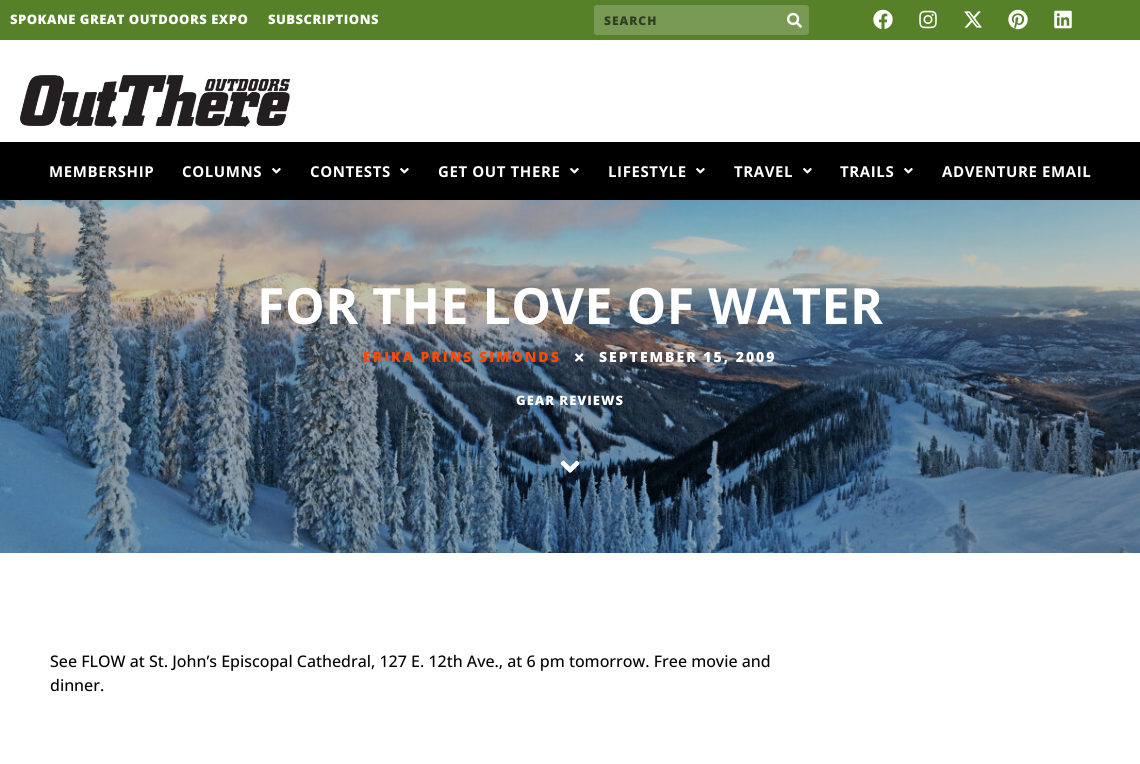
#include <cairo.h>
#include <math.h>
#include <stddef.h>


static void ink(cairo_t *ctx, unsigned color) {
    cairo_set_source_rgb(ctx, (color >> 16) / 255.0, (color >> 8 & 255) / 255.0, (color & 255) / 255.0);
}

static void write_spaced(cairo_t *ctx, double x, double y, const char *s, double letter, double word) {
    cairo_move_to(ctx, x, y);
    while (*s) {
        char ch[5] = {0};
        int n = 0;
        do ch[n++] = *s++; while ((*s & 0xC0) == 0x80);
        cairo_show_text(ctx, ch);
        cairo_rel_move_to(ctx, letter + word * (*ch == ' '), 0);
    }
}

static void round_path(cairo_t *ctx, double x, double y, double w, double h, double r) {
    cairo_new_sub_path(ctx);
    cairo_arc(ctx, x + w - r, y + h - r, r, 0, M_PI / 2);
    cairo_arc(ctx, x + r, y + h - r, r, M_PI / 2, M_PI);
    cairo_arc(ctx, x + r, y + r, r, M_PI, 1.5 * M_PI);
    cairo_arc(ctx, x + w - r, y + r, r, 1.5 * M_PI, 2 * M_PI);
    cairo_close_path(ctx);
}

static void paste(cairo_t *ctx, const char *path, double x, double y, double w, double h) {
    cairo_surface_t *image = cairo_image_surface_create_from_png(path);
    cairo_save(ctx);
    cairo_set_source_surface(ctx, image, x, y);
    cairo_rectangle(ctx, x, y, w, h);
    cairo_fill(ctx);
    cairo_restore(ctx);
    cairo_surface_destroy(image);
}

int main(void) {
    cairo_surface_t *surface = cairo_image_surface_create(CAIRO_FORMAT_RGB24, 1140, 764);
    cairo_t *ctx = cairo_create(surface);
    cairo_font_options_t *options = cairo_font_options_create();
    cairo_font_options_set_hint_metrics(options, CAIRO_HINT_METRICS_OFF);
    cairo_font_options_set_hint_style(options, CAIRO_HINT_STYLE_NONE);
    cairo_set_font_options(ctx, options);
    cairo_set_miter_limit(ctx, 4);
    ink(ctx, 0xFFFFFF);
    cairo_paint(ctx);
    ink(ctx, 0x578129);
    cairo_rectangle(ctx, 0, 0, 1140, 40);
    cairo_fill(ctx);
    cairo_select_font_face(ctx, "Open Sans ExtraBold", CAIRO_FONT_SLANT_NORMAL, CAIRO_FONT_WEIGHT_NORMAL);
    cairo_set_font_size(ctx, 13);
    ink(ctx, 0xFFFFFF);
    write_spaced(ctx, 10, 24, "SPOKANE GREAT OUTDOORS EXPO", 0.5, 0);
    write_spaced(ctx, 268, 24, "SUBSCRIPTIONS", 0.5, 0);
    ink(ctx, 0x799A54);
    round_path(ctx, 594, 5, 215, 30, 3);
    cairo_fill(ctx);
    cairo_set_font_size(ctx, 12);
    ink(ctx, 0x303E22);
    write_spaced(ctx, 604, 25, "SEARCH", 1, 0);
    paste(ctx, "media/1.png", 787, 12, 15, 16);
    paste(ctx, "media/2.png", 873, 9, 20, 20);
    paste(ctx, "media/3.png", 919, 10, 18, 19);
    paste(ctx, "media/4.png", 964, 11, 18, 17);
    paste(ctx, "media/5.png", 1008, 9, 20, 21);
    paste(ctx, "media/6.png", 1054, 10, 18, 19);
    paste(ctx, "media/7.png", 20, 75, 270, 52);
    ink(ctx, 0x000000);
    cairo_rectangle(ctx, 0, 142, 1140, 58);
    cairo_fill(ctx);
    cairo_select_font_face(ctx, "Open Sans", CAIRO_FONT_SLANT_NORMAL, CAIRO_FONT_WEIGHT_BOLD);
    cairo_set_font_size(ctx, 15);
    ink(ctx, 0xFFFFFF);
    write_spaced(ctx, 49, 177, "MEMBERSHIP", 0.6, 0);
    write_spaced(ctx, 182, 177, "COLUMNS", 0.6, 0);
    paste(ctx, "media/8.png", 272, 168, 9, 6);
    write_spaced(ctx, 310, 177, "CONTESTS", 0.6, 0);
    paste(ctx, "media/8.png", 400, 168, 9, 6);
    write_spaced(ctx, 438, 177, "GET OUT THERE", 0.6, 0);
    paste(ctx, "media/8.png", 570, 168, 9, 6);
    write_spaced(ctx, 608, 177, "LIFESTYLE", 0.6, 0);
    paste(ctx, "media/8.png", 696, 168, 9, 6);
    write_spaced(ctx, 734, 177, "TRAVEL", 0.6, 0);
    paste(ctx, "media/8.png", 803, 168, 9, 6);
    write_spaced(ctx, 840, 177, "TRAILS", 0.6, 0);
    paste(ctx, "media/8.png", 904, 168, 9, 6);
    write_spaced(ctx, 942, 177, "ADVENTURE EMAIL", 0.6, 0);
    paste(ctx, "media/9.png", 0, 200, 1140, 353);
    cairo_set_font_size(ctx, 50);
    write_spaced(ctx, 257, 324, "FOR THE LOVE OF WATER", 0.5, 0);
    cairo_select_font_face(ctx, "Open Sans ExtraBold", CAIRO_FONT_SLANT_NORMAL, CAIRO_FONT_WEIGHT_NORMAL);
    cairo_set_font_size(ctx, 14);
    ink(ctx, 0xFC4A00);
    write_spaced(ctx, 363, 362, "ERIKA PRINS SIMONDS", 2, 0);
    paste(ctx, "media/10.png", 575, 353, 9, 9);
    ink(ctx, 0xFFFFFF);
    write_spaced(ctx, 599, 362, "SEPTEMBER 15, 2009", 2, 0);
    cairo_set_font_size(ctx, 13);
    write_spaced(ctx, 516, 405, "GEAR REVIEWS", 1, 0);
    paste(ctx, "media/11.png", 560, 460, 20, 13);
    cairo_select_font_face(ctx, "Open Sans Medium", CAIRO_FONT_SLANT_NORMAL, CAIRO_FONT_WEIGHT_NORMAL);
    cairo_set_font_size(ctx, 16);
    ink(ctx, 0x010101);
    cairo_move_to(ctx, 50, 667);
    cairo_show_text(ctx, "See FLOW at St. John’s Episcopal Cathedral, 127 E. 12th Ave., at 6 pm tomorrow. Free movie and");
    cairo_move_to(ctx, 50, 691);
    cairo_show_text(ctx, "dinner.");
    cairo_surface_write_to_png(surface, "image.png");
    cairo_font_options_destroy(options);
    cairo_destroy(ctx);
    cairo_surface_destroy(surface);
    return 0;
}
